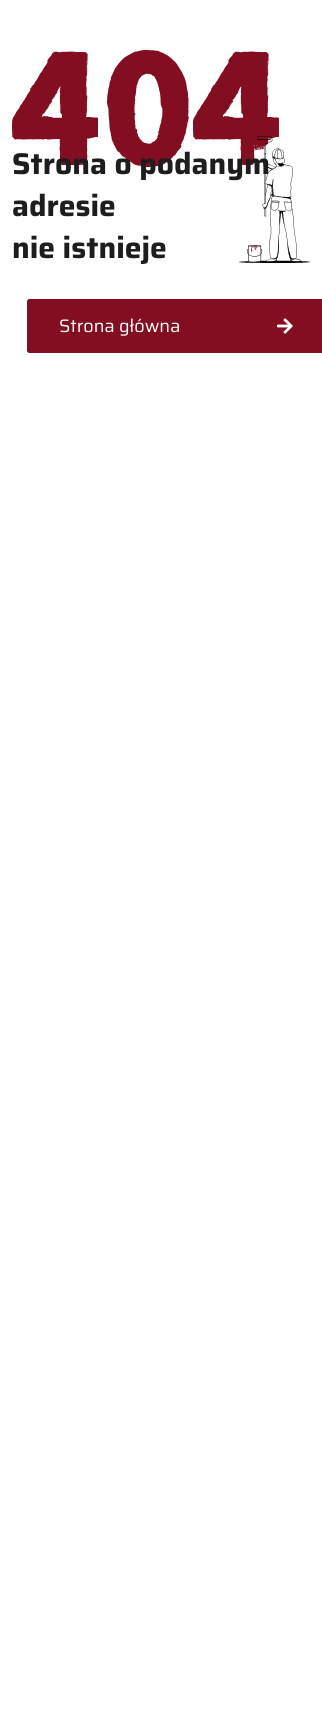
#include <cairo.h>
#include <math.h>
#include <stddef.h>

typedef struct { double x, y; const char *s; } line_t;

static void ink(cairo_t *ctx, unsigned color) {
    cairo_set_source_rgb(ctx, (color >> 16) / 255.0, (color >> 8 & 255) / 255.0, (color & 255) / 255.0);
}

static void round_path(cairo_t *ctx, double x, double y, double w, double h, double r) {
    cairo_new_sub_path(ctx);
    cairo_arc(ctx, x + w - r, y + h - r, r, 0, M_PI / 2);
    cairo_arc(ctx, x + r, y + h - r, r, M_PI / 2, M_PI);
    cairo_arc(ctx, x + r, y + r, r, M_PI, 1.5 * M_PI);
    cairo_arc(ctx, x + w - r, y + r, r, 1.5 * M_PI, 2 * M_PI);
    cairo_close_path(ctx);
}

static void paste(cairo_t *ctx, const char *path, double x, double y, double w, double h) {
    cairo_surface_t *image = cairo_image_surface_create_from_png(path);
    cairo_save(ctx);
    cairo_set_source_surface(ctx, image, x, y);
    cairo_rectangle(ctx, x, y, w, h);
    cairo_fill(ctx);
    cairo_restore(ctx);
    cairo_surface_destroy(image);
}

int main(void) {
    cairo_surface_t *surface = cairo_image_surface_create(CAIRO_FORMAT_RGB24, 322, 1713);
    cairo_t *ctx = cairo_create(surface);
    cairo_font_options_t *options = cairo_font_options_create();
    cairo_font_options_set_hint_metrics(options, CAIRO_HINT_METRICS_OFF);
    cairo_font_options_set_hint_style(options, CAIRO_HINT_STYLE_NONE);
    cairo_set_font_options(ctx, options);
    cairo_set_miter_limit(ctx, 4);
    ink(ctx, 0xFFFFFF);
    cairo_paint(ctx);
    paste(ctx, "media/1.png", 12, 50, 298, 213);
    cairo_select_font_face(ctx, "Saira", CAIRO_FONT_SLANT_NORMAL, CAIRO_FONT_WEIGHT_BOLD);
    cairo_set_font_size(ctx, 30);
    ink(ctx, 0x1D1D1D);
    {
        static const line_t items[] = {
            {12, 174, "Strona o podanym"},
            {12, 216, "adresie"},
            {12, 258, "nie istnieje"},
        };
        for (size_t i = 0; i < sizeof items / sizeof *items; i++) {
            cairo_move_to(ctx, items[i].x, items[i].y);
            cairo_show_text(ctx, items[i].s);
        }
    }
    ink(ctx, 0x830E21);
    cairo_new_path(ctx);
    cairo_move_to(ctx, 30, 299);
    cairo_line_to(ctx, 322, 299);
    cairo_line_to(ctx, 322, 353);
    cairo_line_to(ctx, 30, 353);
    cairo_curve_to(ctx, 28.5, 353, 27, 351.5, 27, 350);
    cairo_line_to(ctx, 27, 302);
    cairo_curve_to(ctx, 27, 300.5, 28.5, 299, 30, 299);
    cairo_close_path(ctx);
    cairo_fill(ctx);
    round_path(ctx, 28, 300, 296, 52, 2);
    cairo_stroke(ctx);
    cairo_select_font_face(ctx, "Saira", CAIRO_FONT_SLANT_NORMAL, CAIRO_FONT_WEIGHT_NORMAL);
    cairo_set_font_size(ctx, 18);
    ink(ctx, 0xFFFFFF);
    cairo_move_to(ctx, 59, 332);
    cairo_show_text(ctx, "Strona główna");
    paste(ctx, "media/2.png", 277, 318, 16, 16);
    cairo_surface_write_to_png(surface, "image.png");
    cairo_font_options_destroy(options);
    cairo_destroy(ctx);
    cairo_surface_destroy(surface);
    return 0;
}
